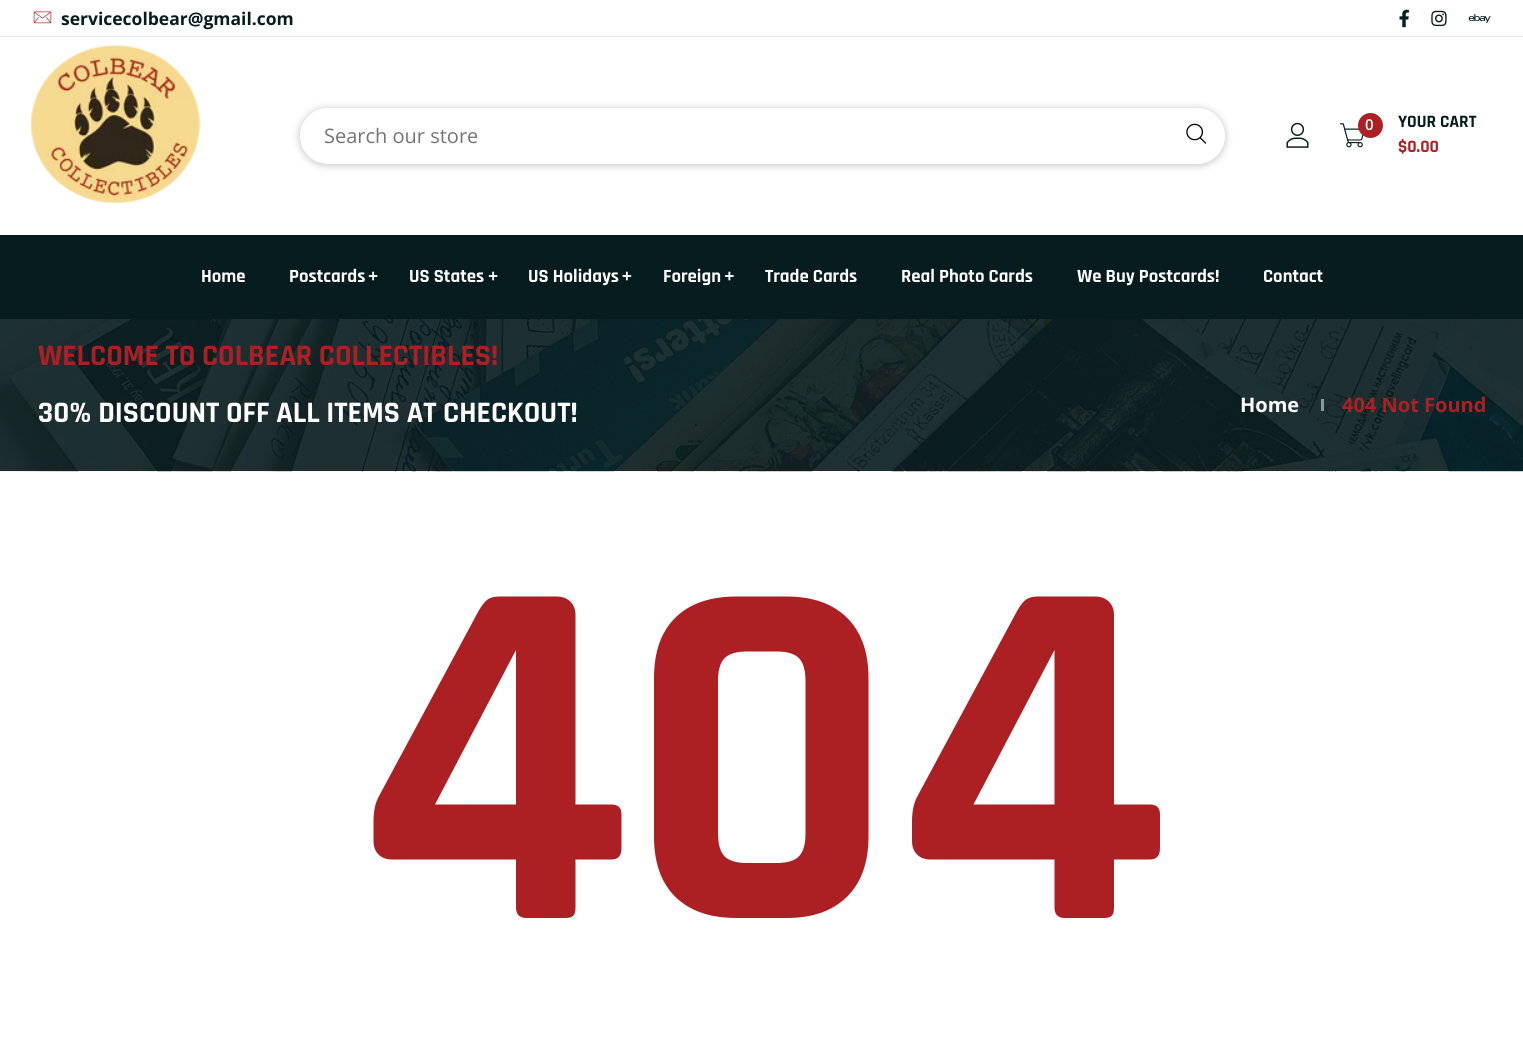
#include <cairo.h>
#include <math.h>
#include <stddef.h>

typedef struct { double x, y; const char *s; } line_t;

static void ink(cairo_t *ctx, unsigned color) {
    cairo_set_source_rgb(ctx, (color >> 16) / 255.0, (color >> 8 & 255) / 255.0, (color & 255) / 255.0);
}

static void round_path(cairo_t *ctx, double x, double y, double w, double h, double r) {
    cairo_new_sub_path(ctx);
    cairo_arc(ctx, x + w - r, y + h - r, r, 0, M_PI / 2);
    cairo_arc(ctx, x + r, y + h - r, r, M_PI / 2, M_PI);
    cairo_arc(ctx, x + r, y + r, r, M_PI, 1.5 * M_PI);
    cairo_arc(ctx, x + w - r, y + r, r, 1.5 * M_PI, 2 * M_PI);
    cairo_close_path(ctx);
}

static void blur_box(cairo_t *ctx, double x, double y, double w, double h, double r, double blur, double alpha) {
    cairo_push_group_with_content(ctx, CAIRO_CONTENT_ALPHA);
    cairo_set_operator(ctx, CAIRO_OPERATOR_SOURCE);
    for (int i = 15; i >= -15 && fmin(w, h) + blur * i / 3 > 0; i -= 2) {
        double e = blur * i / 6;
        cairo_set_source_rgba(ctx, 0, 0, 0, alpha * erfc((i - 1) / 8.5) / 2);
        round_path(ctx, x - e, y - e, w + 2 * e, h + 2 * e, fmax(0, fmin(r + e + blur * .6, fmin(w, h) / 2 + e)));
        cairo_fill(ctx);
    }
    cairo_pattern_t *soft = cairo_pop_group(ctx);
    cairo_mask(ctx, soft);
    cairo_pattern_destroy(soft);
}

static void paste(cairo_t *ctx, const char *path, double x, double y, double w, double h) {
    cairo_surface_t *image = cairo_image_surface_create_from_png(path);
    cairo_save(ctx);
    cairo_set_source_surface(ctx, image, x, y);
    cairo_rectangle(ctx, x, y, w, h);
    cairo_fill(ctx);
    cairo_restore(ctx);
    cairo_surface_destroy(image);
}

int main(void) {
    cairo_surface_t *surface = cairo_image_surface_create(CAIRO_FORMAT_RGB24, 1523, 1040);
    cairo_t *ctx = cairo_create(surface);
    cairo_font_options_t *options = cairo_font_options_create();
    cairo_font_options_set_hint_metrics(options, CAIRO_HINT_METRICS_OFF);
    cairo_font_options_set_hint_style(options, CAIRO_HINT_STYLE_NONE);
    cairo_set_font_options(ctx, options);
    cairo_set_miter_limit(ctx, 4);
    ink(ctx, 0xFFFFFF);
    cairo_paint(ctx);
    ink(ctx, 0xE5EAEE);
    cairo_rectangle(ctx, 0, 36, 1523, 1);
    cairo_fill(ctx);
    paste(ctx, "media/1.png", 33, 11, 19, 13);
    cairo_select_font_face(ctx, "Open Sans", CAIRO_FONT_SLANT_NORMAL, CAIRO_FONT_WEIGHT_BOLD);
    cairo_set_font_size(ctx, 17.5);
    ink(ctx, 0x071C1F);
    cairo_move_to(ctx, 61, 25);
    cairo_show_text(ctx, "servicecolbear@gmail.com");
    paste(ctx, "media/2.png", 1399, 9, 10, 19);
    paste(ctx, "media/3.png", 1431, 10, 16, 17);
    paste(ctx, "media/4.png", 1468, 14, 23, 9);
    paste(ctx, "media/5.png", 31, 44, 169, 160);
    ink(ctx, 0x202124);
    blur_box(ctx, 300, 109, 925, 56, 28, 4, 0.28);
    ink(ctx, 0xFFFFFF);
    round_path(ctx, 300, 108, 925, 56, 28);
    cairo_fill(ctx);
    cairo_select_font_face(ctx, "Open Sans", CAIRO_FONT_SLANT_NORMAL, CAIRO_FONT_WEIGHT_NORMAL);
    cairo_set_font_size(ctx, 20);
    ink(ctx, 0x757575);
    cairo_move_to(ctx, 324, 143);
    cairo_show_text(ctx, "Search our store");
    paste(ctx, "media/6.png", 1186, 123, 21, 21);
    paste(ctx, "media/7.png", 1286, 122, 23, 26);
    paste(ctx, "media/8.png", 1340, 123, 24, 25);
    ink(ctx, 0xAC2024);
    cairo_arc(ctx, 1370.5, 125.5, 12.5, 0, 2 * M_PI);
    cairo_fill(ctx);
    cairo_select_font_face(ctx, "Open Sans SemiBold", CAIRO_FONT_SLANT_NORMAL, CAIRO_FONT_WEIGHT_NORMAL);
    cairo_set_font_size(ctx, 15);
    ink(ctx, 0xFFFFFF);
    cairo_move_to(ctx, 1365, 130);
    cairo_show_text(ctx, "0");
    cairo_select_font_face(ctx, "Rajdhani", CAIRO_FONT_SLANT_NORMAL, CAIRO_FONT_WEIGHT_BOLD);
    cairo_set_font_size(ctx, 17.5);
    ink(ctx, 0x071C1F);
    cairo_move_to(ctx, 1398, 127);
    cairo_show_text(ctx, "YOUR CART");
    ink(ctx, 0xAC2024);
    cairo_move_to(ctx, 1398, 152);
    cairo_show_text(ctx, "$0.00");
    ink(ctx, 0x071C1F);
    cairo_rectangle(ctx, 0, 235, 1523, 84);
    cairo_fill(ctx);
    cairo_set_font_size(ctx, 18.75);
    ink(ctx, 0xFFFFFF);
    cairo_move_to(ctx, 201, 282);
    cairo_show_text(ctx, "Home");
    cairo_move_to(ctx, 289, 282);
    cairo_show_text(ctx, "Postcards");
    paste(ctx, "media/9.png", 368, 271, 10, 10);
    cairo_move_to(ctx, 409, 282);
    cairo_show_text(ctx, "US States");
    paste(ctx, "media/9.png", 488, 271, 10, 10);
    cairo_move_to(ctx, 528, 282);
    cairo_show_text(ctx, "US Holidays");
    paste(ctx, "media/10.png", 622, 271, 10, 10);
    cairo_move_to(ctx, 663, 282);
    cairo_show_text(ctx, "Foreign");
    paste(ctx, "media/11.png", 725, 271, 9, 10);
    {
        static const line_t items[] = {
            {765, 282, "Trade Cards"},
            {901, 282, "Real Photo Cards"},
            {1077, 282, "We Buy Postcards!"},
            {1263, 282, "Contact"},
        };
        for (size_t i = 0; i < sizeof items / sizeof *items; i++) {
            cairo_move_to(ctx, items[i].x, items[i].y);
            cairo_show_text(ctx, items[i].s);
        }
    }
    paste(ctx, "media/12.png", 0, 319, 1523, 153);
    cairo_set_font_size(ctx, 30);
    ink(ctx, 0xAC2024);
    cairo_move_to(ctx, 38, 365);
    cairo_show_text(ctx, "WELCOME TO COLBEAR COLLECTIBLES!");
    ink(ctx, 0xFFFFFF);
    cairo_move_to(ctx, 38, 422);
    cairo_show_text(ctx, "30% DISCOUNT OFF ALL ITEMS AT CHECKOUT!");
    cairo_select_font_face(ctx, "Open Sans", CAIRO_FONT_SLANT_NORMAL, CAIRO_FONT_WEIGHT_BOLD);
    cairo_set_font_size(ctx, 20);
    cairo_move_to(ctx, 1240, 412);
    cairo_show_text(ctx, "Home");
    ink(ctx, 0x8E9798);
    cairo_rectangle(ctx, 1321, 399, 3, 12);
    cairo_fill(ctx);
    ink(ctx, 0xAC2024);
    cairo_move_to(ctx, 1342, 412);
    cairo_show_text(ctx, "404 Not Found");
    cairo_select_font_face(ctx, "Rajdhani", CAIRO_FONT_SLANT_NORMAL, CAIRO_FONT_WEIGHT_BOLD);
    cairo_set_font_size(ctx, 500);
    cairo_move_to(ctx, 357, 918);
    cairo_show_text(ctx, "404");
    cairo_surface_write_to_png(surface, "image.png");
    cairo_font_options_destroy(options);
    cairo_destroy(ctx);
    cairo_surface_destroy(surface);
    return 0;
}
